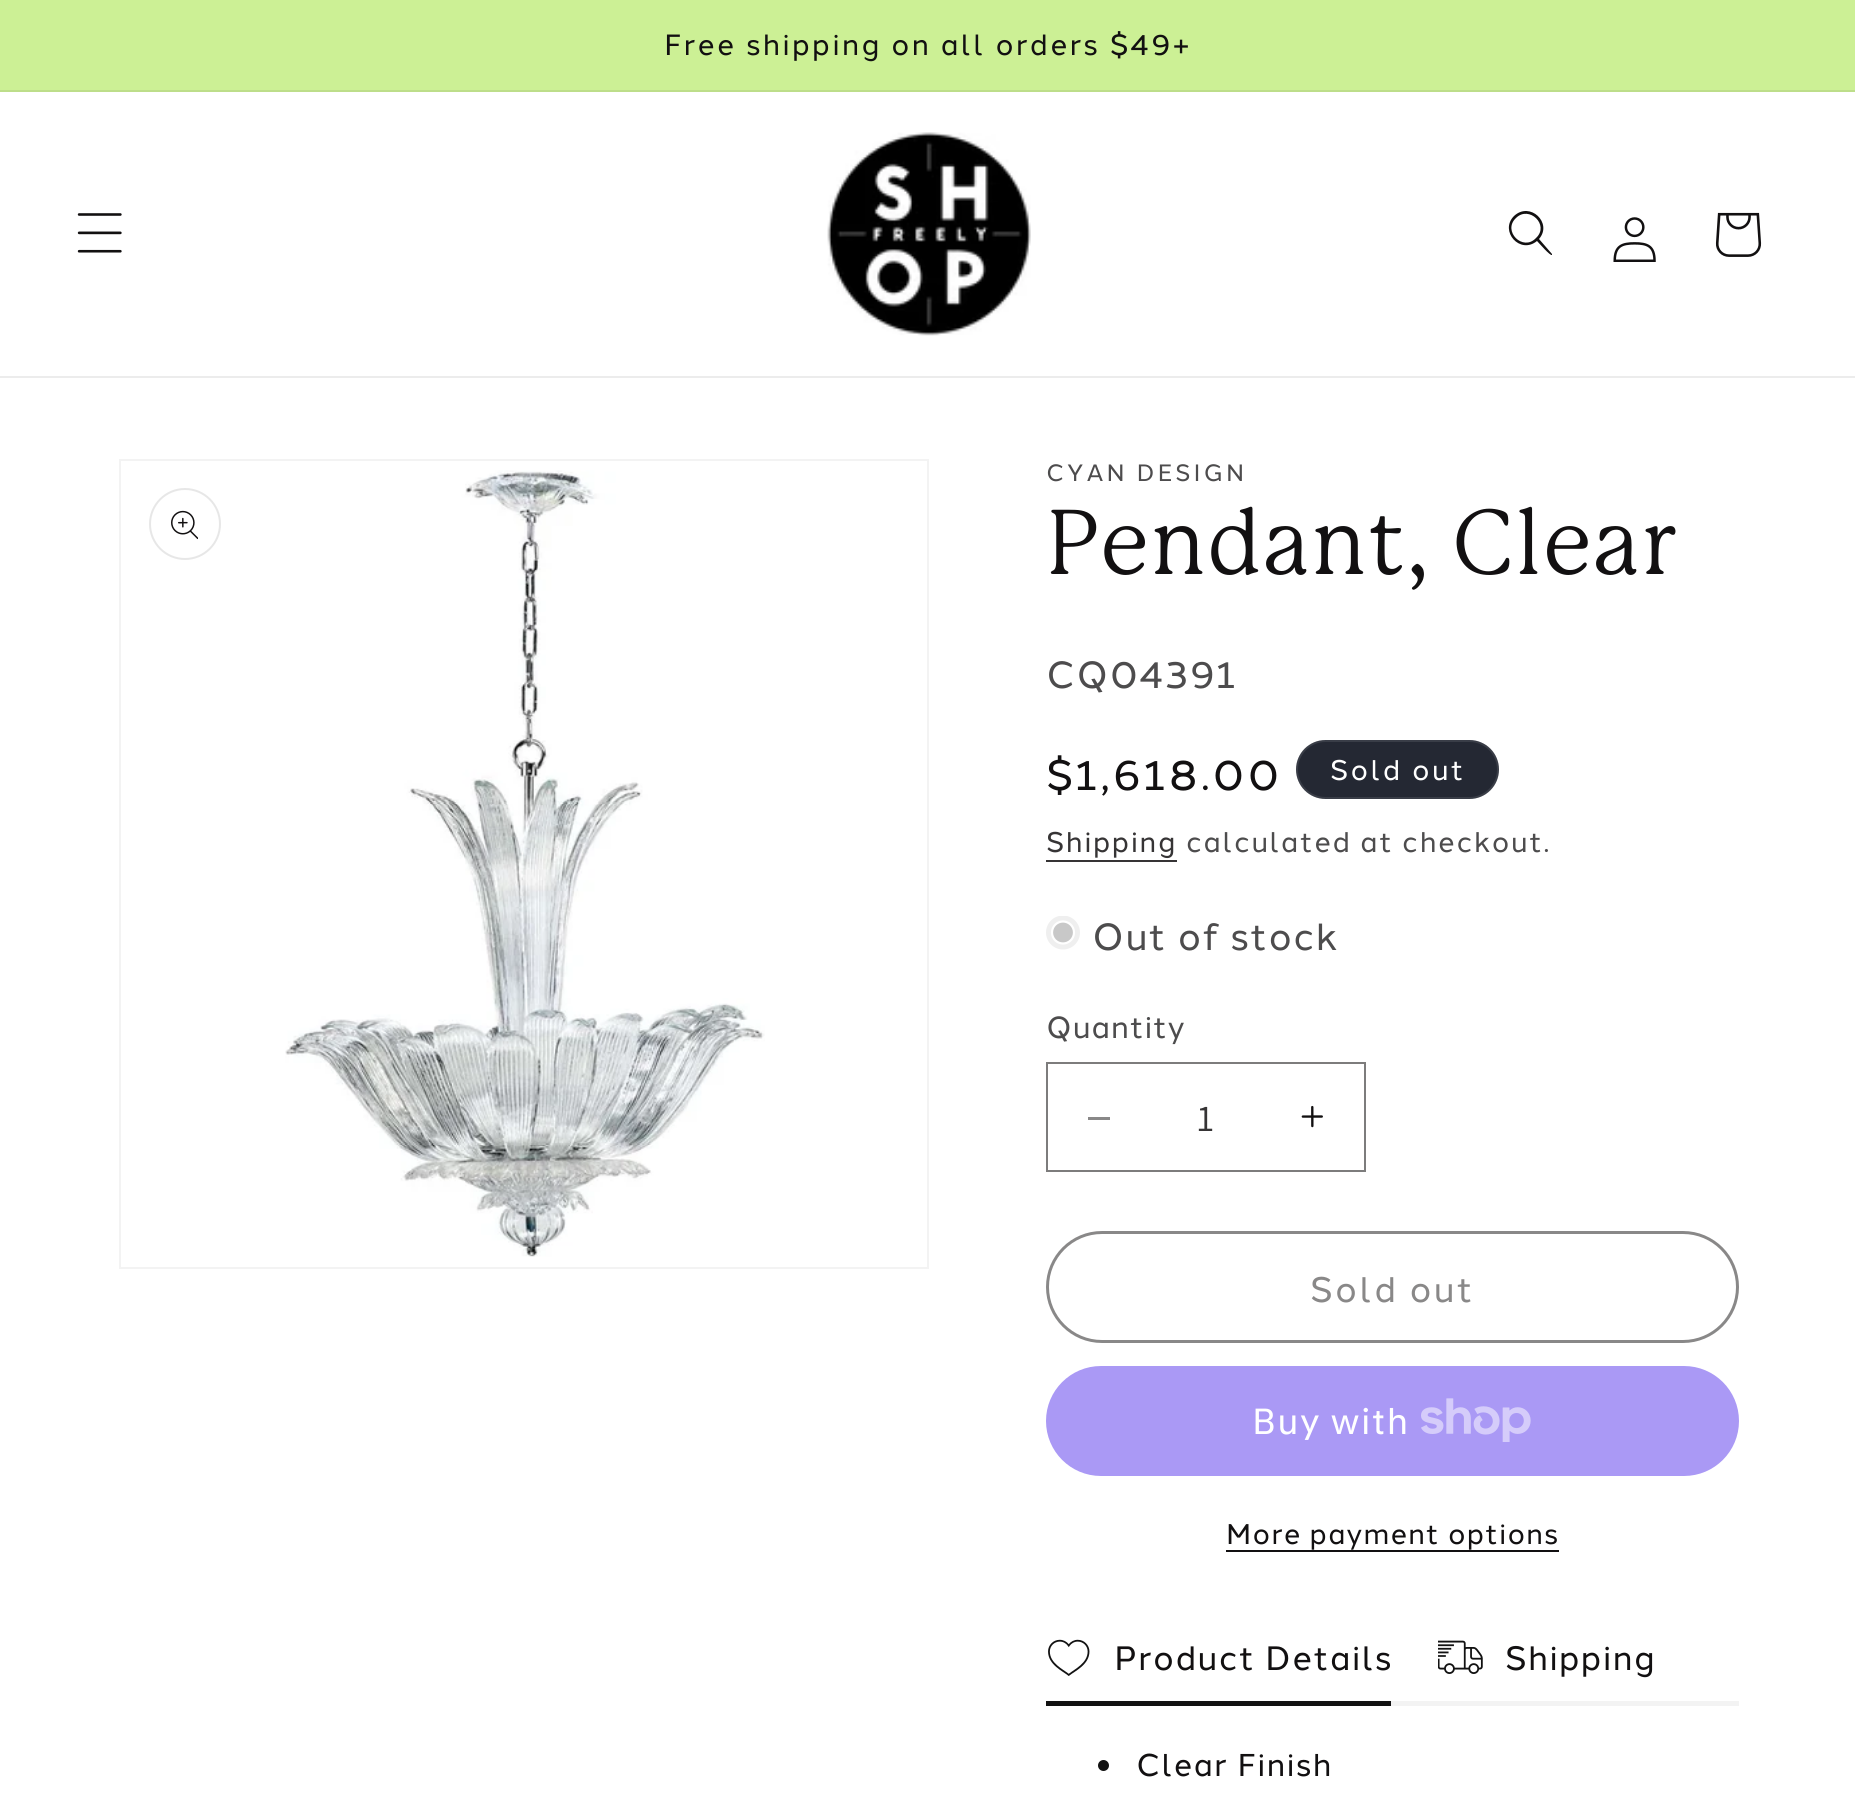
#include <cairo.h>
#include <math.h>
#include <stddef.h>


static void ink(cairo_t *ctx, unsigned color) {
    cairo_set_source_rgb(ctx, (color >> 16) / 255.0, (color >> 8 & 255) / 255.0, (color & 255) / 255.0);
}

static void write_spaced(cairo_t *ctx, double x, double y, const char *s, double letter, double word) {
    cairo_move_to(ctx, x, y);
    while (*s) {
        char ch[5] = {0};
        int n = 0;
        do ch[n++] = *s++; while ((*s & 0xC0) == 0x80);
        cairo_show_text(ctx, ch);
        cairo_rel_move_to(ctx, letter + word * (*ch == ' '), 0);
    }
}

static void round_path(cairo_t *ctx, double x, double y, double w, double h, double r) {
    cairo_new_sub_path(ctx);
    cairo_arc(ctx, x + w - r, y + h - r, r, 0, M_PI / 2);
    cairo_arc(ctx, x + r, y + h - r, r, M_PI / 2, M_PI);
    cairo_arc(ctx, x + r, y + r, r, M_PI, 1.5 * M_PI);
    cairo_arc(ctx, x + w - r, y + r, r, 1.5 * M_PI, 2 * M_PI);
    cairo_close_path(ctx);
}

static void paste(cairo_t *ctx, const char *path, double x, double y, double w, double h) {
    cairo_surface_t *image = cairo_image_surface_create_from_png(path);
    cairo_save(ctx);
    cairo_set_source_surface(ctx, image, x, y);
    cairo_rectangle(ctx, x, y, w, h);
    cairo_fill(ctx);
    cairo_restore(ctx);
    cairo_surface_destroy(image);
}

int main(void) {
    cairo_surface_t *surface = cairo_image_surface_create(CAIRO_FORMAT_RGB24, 1855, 1801);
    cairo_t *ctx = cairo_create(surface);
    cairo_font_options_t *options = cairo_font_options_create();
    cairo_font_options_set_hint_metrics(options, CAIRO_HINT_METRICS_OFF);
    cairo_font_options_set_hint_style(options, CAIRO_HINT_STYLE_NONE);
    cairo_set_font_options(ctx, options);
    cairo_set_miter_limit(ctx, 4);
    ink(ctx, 0xFFFFFF);
    cairo_paint(ctx);
    ink(ctx, 0xCCF095);
    cairo_rectangle(ctx, 0, 0, 1855, 90);
    cairo_fill(ctx);
    ink(ctx, 0xBDDE8A);
    cairo_rectangle(ctx, 0, 90, 1855, 2);
    cairo_fill(ctx);
    cairo_select_font_face(ctx, "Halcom", CAIRO_FONT_SLANT_NORMAL, CAIRO_FONT_WEIGHT_NORMAL);
    cairo_set_font_size(ctx, 29.25);
    ink(ctx, 0x121011);
    write_spaced(ctx, 664, 55, "Free shipping on all orders $49+", 2.35, 0);
    ink(ctx, 0xECECEC);
    cairo_rectangle(ctx, 0, 376, 1855, 2);
    cairo_fill(ctx);
    paste(ctx, "media/1.png", 77, 213, 45, 40);
    paste(ctx, "media/2.png", 827, 132, 204, 204);
    ink(ctx, 0x121011);
    cairo_set_fill_rule(ctx, CAIRO_FILL_RULE_EVEN_ODD);
    cairo_new_path(ctx);
    cairo_move_to(ctx, 1536, 238);
    cairo_curve_to(ctx, 1523, 252, 1502, 231, 1516, 218);
    cairo_curve_to(ctx, 1529, 205, 1550, 225, 1536, 238);
    cairo_close_path(ctx);
    cairo_move_to(ctx, 1537, 241);
    cairo_curve_to(ctx, 1520, 255, 1499, 231, 1514, 216);
    cairo_curve_to(ctx, 1530, 201, 1553, 223, 1539, 239);
    cairo_line_to(ctx, 1552, 254);
    cairo_line_to(ctx, 1552, 255);
    cairo_curve_to(ctx, 1550, 256, 1539, 243, 1537, 241);
    cairo_close_path(ctx);
    cairo_fill(ctx);
    paste(ctx, "media/3.png", 1613, 217, 43, 45);
    paste(ctx, "media/4.png", 1715, 212, 47, 45);
    cairo_rectangle(ctx, 120, 460, 808, 808);
    ink(ctx, 0xF3F3F3);
    cairo_stroke(ctx);
    cairo_arc(ctx, 185, 524, 35, 0, 2 * M_PI);
    ink(ctx, 0xE7E7E7);
    cairo_stroke(ctx);
    paste(ctx, "media/5.png", 171, 510, 27, 30);
    paste(ctx, "media/6.png", 285, 470, 480, 787);
    cairo_set_font_size(ctx, 23.6);
    ink(ctx, 0x4D4C4D);
    write_spaced(ctx, 1046, 481, "CYAN DESIGN", 3, 0);
    cairo_select_font_face(ctx, "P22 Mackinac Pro", CAIRO_FONT_SLANT_NORMAL, CAIRO_FONT_WEIGHT_NORMAL);
    cairo_set_font_size(ctx, 90);
    ink(ctx, 0x121011);
    write_spaced(ctx, 1046, 574, "Pendant, Clear", 1.4, 0);
    cairo_select_font_face(ctx, "Halcom", CAIRO_FONT_SLANT_NORMAL, CAIRO_FONT_WEIGHT_NORMAL);
    cairo_set_font_size(ctx, 37.75);
    ink(ctx, 0x4D4C4D);
    write_spaced(ctx, 1046, 688, "CQ04391", 1.4, 0);
    cairo_set_font_size(ctx, 42.5);
    ink(ctx, 0x121011);
    write_spaced(ctx, 1046, 790, "$1,618.00", 3, 0);
    ink(ctx, 0x242833);
    round_path(ctx, 1296, 740, 203, 59, 29.5);
    cairo_fill(ctx);
    round_path(ctx, 1297, 741, 201, 57, 28.5);
    cairo_set_source_rgba(ctx, 1, 1, 1, 0.1);
    cairo_stroke(ctx);
    cairo_set_font_size(ctx, 28.4);
    ink(ctx, 0xFFFFFF);
    write_spaced(ctx, 1330, 780, "Sold out", 2.35, 0);
    ink(ctx, 0x363435);
    write_spaced(ctx, 1046, 852, "Shipping", 1.65, 0);
    cairo_rectangle(ctx, 1046, 860, 131, 2);
    cairo_fill(ctx);
    ink(ctx, 0x4D4C4D);
    write_spaced(ctx, 1186, 852, "calculated at checkout.", 1.65, 0);
    cairo_save(ctx);
    cairo_set_fill_rule(ctx, CAIRO_FILL_RULE_WINDING);
    cairo_rectangle(ctx, 1046, 916, 34, 34);
    cairo_clip(ctx);
    ink(ctx, 0xEFEFEF);
    cairo_arc(ctx, 1063, 932.5, 17, 0, 2 * M_PI);
    cairo_fill(ctx);
    cairo_restore(ctx);
    ink(ctx, 0xC8C8C8);
    cairo_arc(ctx, 1063, 932.5, 11, 0, 2 * M_PI);
    cairo_fill_preserve(ctx);
    ink(ctx, 0xFFFFFF);
    cairo_set_line_width(ctx, 2.2);
    cairo_stroke(ctx);
    cairo_set_font_size(ctx, 37.75);
    ink(ctx, 0x4D4C4D);
    write_spaced(ctx, 1092, 950, "Out of stock", 1.4, 0);
    cairo_set_font_size(ctx, 30.5);
    write_spaced(ctx, 1046, 1038, "Quantity", 1, 0);
    ink(ctx, 0x898888);
    cairo_rectangle(ctx, 1088, 1117, 22, 3);
    cairo_fill(ctx);
    paste(ctx, "media/7.png", 1301, 1105, 22, 23);
    cairo_rectangle(ctx, 1047, 1063, 318, 108);
    ink(ctx, 0x7D7C7C);
    cairo_set_line_width(ctx, 2);
    cairo_stroke(ctx);
    cairo_select_font_face(ctx, "Assistant", CAIRO_FONT_SLANT_NORMAL, CAIRO_FONT_WEIGHT_NORMAL);
    cairo_set_font_size(ctx, 37.75);
    ink(ctx, 0x363435);
    cairo_move_to(ctx, 1197, 1131);
    cairo_show_text(ctx, "1");
    round_path(ctx, 1047.5, 1232.5, 690, 109, 54.5);
    ink(ctx, 0x898888);
    cairo_set_line_width(ctx, 3);
    cairo_stroke(ctx);
    cairo_select_font_face(ctx, "Halcom", CAIRO_FONT_SLANT_NORMAL, CAIRO_FONT_WEIGHT_NORMAL);
    cairo_set_font_size(ctx, 35.5);
    write_spaced(ctx, 1310, 1302, "Sold out", 2.35, 0);
    ink(ctx, 0xAA99F5);
    round_path(ctx, 1046, 1366, 693, 110, 55);
    cairo_fill(ctx);
    cairo_select_font_face(ctx, "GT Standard", CAIRO_FONT_SLANT_NORMAL, CAIRO_FONT_WEIGHT_NORMAL);
    cairo_set_font_size(ctx, 36);
    ink(ctx, 0xFFFFFF);
    write_spaced(ctx, 1252, 1434, "Buy with", 1.4, 0);
    paste(ctx, "media/8.png", 1421, 1398, 110, 44);
    cairo_select_font_face(ctx, "Halcom", CAIRO_FONT_SLANT_NORMAL, CAIRO_FONT_WEIGHT_NORMAL);
    cairo_set_font_size(ctx, 28.4);
    ink(ctx, 0x121011);
    write_spaced(ctx, 1226, 1544, "More payment options", 1.2, 0);
    cairo_rectangle(ctx, 1226, 1550, 333, 2);
    cairo_fill(ctx);
    paste(ctx, "media/9.png", 1048, 1639, 42, 37);
    cairo_set_font_size(ctx, 33.75);
    write_spaced(ctx, 1114, 1670, "Product Details", 1.4, 0);
    paste(ctx, "media/10.png", 1438, 1640, 45, 34);
    write_spaced(ctx, 1505, 1670, "Shipping", 1.4, 0);
    ink(ctx, 0xF3F3F3);
    cairo_rectangle(ctx, 1391, 1701, 348, 5);
    cairo_fill(ctx);
    ink(ctx, 0x121212);
    cairo_rectangle(ctx, 1046, 1701, 345, 5);
    cairo_fill(ctx);
    cairo_arc(ctx, 1103.5, 1765.5, 5.5, 0, 2 * M_PI);
    cairo_fill(ctx);
    cairo_set_font_size(ctx, 31.5);
    ink(ctx, 0x121011);
    write_spaced(ctx, 1136, 1776, "Clear Finish", 1.4, 0);
    cairo_surface_write_to_png(surface, "image.png");
    cairo_font_options_destroy(options);
    cairo_destroy(ctx);
    cairo_surface_destroy(surface);
    return 0;
}
